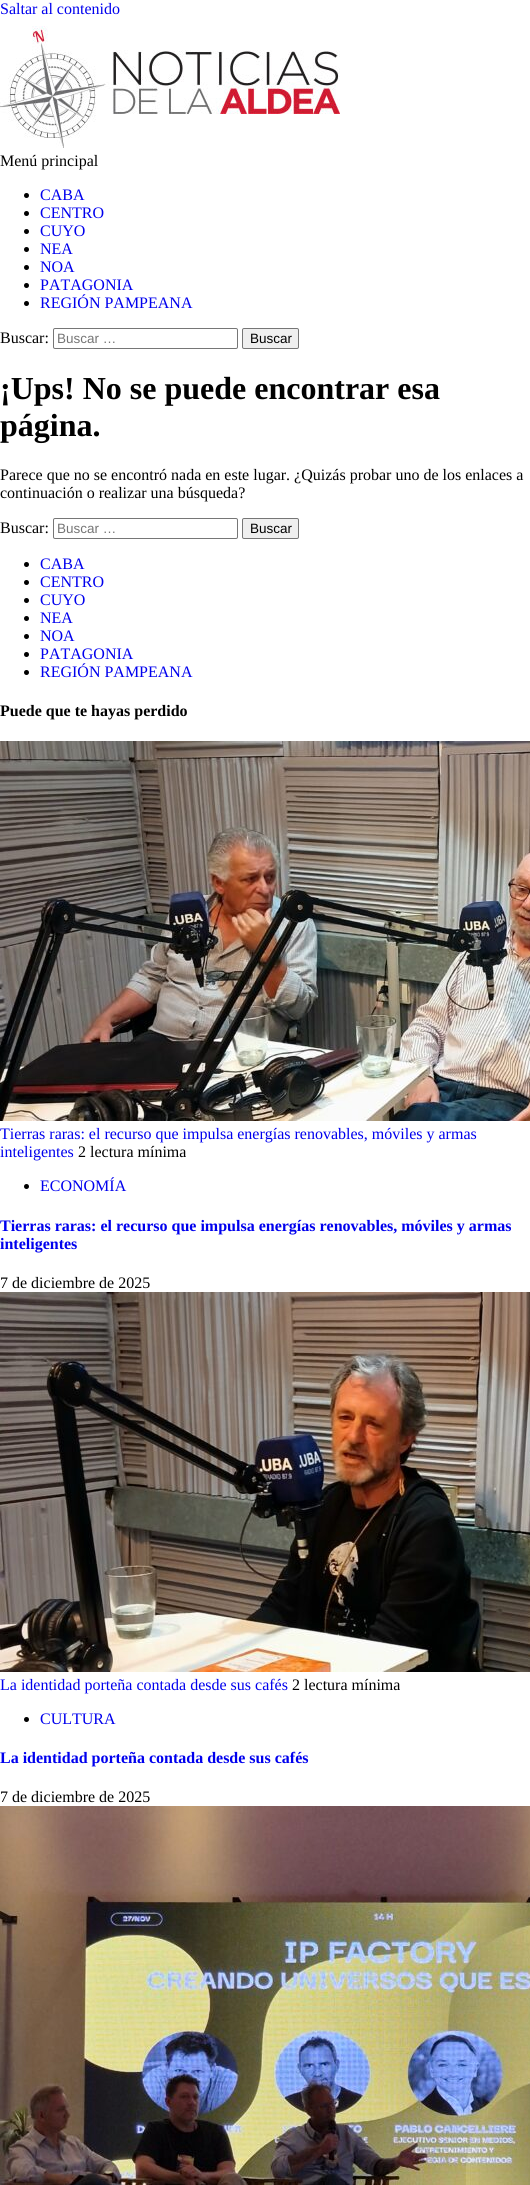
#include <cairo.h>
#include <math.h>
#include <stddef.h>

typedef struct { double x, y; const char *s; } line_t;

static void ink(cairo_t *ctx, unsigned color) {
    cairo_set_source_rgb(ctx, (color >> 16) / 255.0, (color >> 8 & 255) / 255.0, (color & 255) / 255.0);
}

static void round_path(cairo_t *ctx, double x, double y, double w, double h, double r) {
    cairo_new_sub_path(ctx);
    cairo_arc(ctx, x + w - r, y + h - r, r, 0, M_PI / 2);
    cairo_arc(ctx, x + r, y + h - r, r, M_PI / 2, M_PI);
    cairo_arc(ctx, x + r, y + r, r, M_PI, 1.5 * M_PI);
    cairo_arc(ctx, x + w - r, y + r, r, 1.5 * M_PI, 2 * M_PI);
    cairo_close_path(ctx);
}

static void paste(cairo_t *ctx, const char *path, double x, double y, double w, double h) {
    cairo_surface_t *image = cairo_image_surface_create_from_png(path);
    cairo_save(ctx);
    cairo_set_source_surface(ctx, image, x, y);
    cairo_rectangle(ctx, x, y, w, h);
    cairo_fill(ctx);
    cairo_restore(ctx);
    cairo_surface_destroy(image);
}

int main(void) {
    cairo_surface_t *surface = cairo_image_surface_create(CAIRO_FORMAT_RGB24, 530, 2185);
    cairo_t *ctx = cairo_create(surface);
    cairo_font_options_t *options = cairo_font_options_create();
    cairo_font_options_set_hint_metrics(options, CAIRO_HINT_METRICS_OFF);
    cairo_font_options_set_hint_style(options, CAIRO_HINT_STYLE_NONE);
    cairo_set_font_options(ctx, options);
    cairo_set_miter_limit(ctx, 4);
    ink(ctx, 0xFFFFFF);
    cairo_paint(ctx);
    cairo_select_font_face(ctx, "Liberation Serif", CAIRO_FONT_SLANT_NORMAL, CAIRO_FONT_WEIGHT_NORMAL);
    cairo_set_font_size(ctx, 16);
    ink(ctx, 0x0000EE);
    cairo_move_to(ctx, 0, 14);
    cairo_show_text(ctx, "Saltar al contenido");
    paste(ctx, "media/1.png", 0, 26, 340, 122);
    ink(ctx, 0x000000);
    cairo_move_to(ctx, 0, 166);
    cairo_show_text(ctx, "Menú principal");
    cairo_new_path(ctx);
    cairo_arc(ctx, 26.5, 195.5, 2.5, 0, 2 * M_PI);
    cairo_fill(ctx);
    ink(ctx, 0x0000EE);
    cairo_move_to(ctx, 40, 200);
    cairo_show_text(ctx, "CABA");
    ink(ctx, 0x000000);
    cairo_new_path(ctx);
    cairo_arc(ctx, 26.5, 213.5, 2.5, 0, 2 * M_PI);
    cairo_fill(ctx);
    ink(ctx, 0x0000EE);
    cairo_move_to(ctx, 40, 218);
    cairo_show_text(ctx, "CENTRO");
    ink(ctx, 0x000000);
    cairo_new_path(ctx);
    cairo_arc(ctx, 26.5, 231.5, 2.5, 0, 2 * M_PI);
    cairo_fill(ctx);
    ink(ctx, 0x0000EE);
    cairo_move_to(ctx, 40, 236);
    cairo_show_text(ctx, "CUYO");
    ink(ctx, 0x000000);
    cairo_new_path(ctx);
    cairo_arc(ctx, 26.5, 249.5, 2.5, 0, 2 * M_PI);
    cairo_fill(ctx);
    ink(ctx, 0x0000EE);
    cairo_move_to(ctx, 40, 254);
    cairo_show_text(ctx, "NEA");
    ink(ctx, 0x000000);
    cairo_new_path(ctx);
    cairo_arc(ctx, 26.5, 267.5, 2.5, 0, 2 * M_PI);
    cairo_fill(ctx);
    ink(ctx, 0x0000EE);
    cairo_move_to(ctx, 40, 272);
    cairo_show_text(ctx, "NOA");
    ink(ctx, 0x000000);
    cairo_new_path(ctx);
    cairo_arc(ctx, 26.5, 285.5, 2.5, 0, 2 * M_PI);
    cairo_fill(ctx);
    ink(ctx, 0x0000EE);
    cairo_move_to(ctx, 40, 290);
    cairo_show_text(ctx, "PATAGONIA");
    ink(ctx, 0x000000);
    cairo_new_path(ctx);
    cairo_arc(ctx, 26.5, 303.5, 2.5, 0, 2 * M_PI);
    cairo_fill(ctx);
    ink(ctx, 0x0000EE);
    cairo_move_to(ctx, 40, 308);
    cairo_show_text(ctx, "REGIÓN PAMPEANA");
    ink(ctx, 0x000000);
    cairo_move_to(ctx, 0, 343);
    cairo_show_text(ctx, "Buscar:");
    round_path(ctx, 53.5, 328.5, 184, 20, 1.5);
    ink(ctx, 0x767676);
    cairo_set_line_width(ctx, 1);
    cairo_stroke(ctx);
    cairo_select_font_face(ctx, "Liberation Sans", CAIRO_FONT_SLANT_NORMAL, CAIRO_FONT_WEIGHT_NORMAL);
    cairo_set_font_size(ctx, 13.5);
    ink(ctx, 0x757575);
    cairo_move_to(ctx, 57, 343);
    cairo_show_text(ctx, "Buscar …");
    ink(ctx, 0xEFEFEF);
    round_path(ctx, 242.5, 328.5, 56, 20, 1.5);
    cairo_fill_preserve(ctx);
    ink(ctx, 0x767676);
    cairo_stroke(ctx);
    ink(ctx, 0x000000);
    cairo_move_to(ctx, 250, 343);
    cairo_show_text(ctx, "Buscar");
    cairo_select_font_face(ctx, "Liberation Serif", CAIRO_FONT_SLANT_NORMAL, CAIRO_FONT_WEIGHT_BOLD);
    cairo_set_font_size(ctx, 32);
    cairo_move_to(ctx, 0, 399);
    cairo_show_text(ctx, "¡Ups! No se puede encontrar esa");
    cairo_move_to(ctx, 0, 436);
    cairo_show_text(ctx, "página.");
    cairo_select_font_face(ctx, "Liberation Serif", CAIRO_FONT_SLANT_NORMAL, CAIRO_FONT_WEIGHT_NORMAL);
    cairo_set_font_size(ctx, 16);
    {
        static const line_t items[] = {
            {0, 480, "Parece que no se encontró nada en este lugar. ¿Quizás probar uno de los enlaces a"},
            {0, 498, "continuación o realizar una búsqueda?"},
            {0, 533, "Buscar:"},
        };
        for (size_t i = 0; i < sizeof items / sizeof *items; i++) {
            cairo_move_to(ctx, items[i].x, items[i].y);
            cairo_show_text(ctx, items[i].s);
        }
    }
    round_path(ctx, 53.5, 518.5, 184, 20, 1.5);
    ink(ctx, 0x767676);
    cairo_stroke(ctx);
    cairo_select_font_face(ctx, "Liberation Sans", CAIRO_FONT_SLANT_NORMAL, CAIRO_FONT_WEIGHT_NORMAL);
    cairo_set_font_size(ctx, 13.5);
    ink(ctx, 0x757575);
    cairo_move_to(ctx, 57, 533);
    cairo_show_text(ctx, "Buscar …");
    ink(ctx, 0xEFEFEF);
    round_path(ctx, 242.5, 518.5, 56, 20, 1.5);
    cairo_fill_preserve(ctx);
    ink(ctx, 0x767676);
    cairo_stroke(ctx);
    ink(ctx, 0x000000);
    cairo_move_to(ctx, 250, 533);
    cairo_show_text(ctx, "Buscar");
    cairo_new_path(ctx);
    cairo_arc(ctx, 26.5, 564.5, 2.5, 0, 2 * M_PI);
    cairo_fill(ctx);
    cairo_select_font_face(ctx, "Liberation Serif", CAIRO_FONT_SLANT_NORMAL, CAIRO_FONT_WEIGHT_NORMAL);
    cairo_set_font_size(ctx, 16);
    ink(ctx, 0x0000EE);
    cairo_move_to(ctx, 40, 569);
    cairo_show_text(ctx, "CABA");
    ink(ctx, 0x000000);
    cairo_new_path(ctx);
    cairo_arc(ctx, 26.5, 582.5, 2.5, 0, 2 * M_PI);
    cairo_fill(ctx);
    ink(ctx, 0x0000EE);
    cairo_move_to(ctx, 40, 587);
    cairo_show_text(ctx, "CENTRO");
    ink(ctx, 0x000000);
    cairo_new_path(ctx);
    cairo_arc(ctx, 26.5, 600.5, 2.5, 0, 2 * M_PI);
    cairo_fill(ctx);
    ink(ctx, 0x0000EE);
    cairo_move_to(ctx, 40, 605);
    cairo_show_text(ctx, "CUYO");
    ink(ctx, 0x000000);
    cairo_new_path(ctx);
    cairo_arc(ctx, 26.5, 618.5, 2.5, 0, 2 * M_PI);
    cairo_fill(ctx);
    ink(ctx, 0x0000EE);
    cairo_move_to(ctx, 40, 623);
    cairo_show_text(ctx, "NEA");
    ink(ctx, 0x000000);
    cairo_new_path(ctx);
    cairo_arc(ctx, 26.5, 636.5, 2.5, 0, 2 * M_PI);
    cairo_fill(ctx);
    ink(ctx, 0x0000EE);
    cairo_move_to(ctx, 40, 641);
    cairo_show_text(ctx, "NOA");
    ink(ctx, 0x000000);
    cairo_new_path(ctx);
    cairo_arc(ctx, 26.5, 654.5, 2.5, 0, 2 * M_PI);
    cairo_fill(ctx);
    ink(ctx, 0x0000EE);
    cairo_move_to(ctx, 40, 659);
    cairo_show_text(ctx, "PATAGONIA");
    ink(ctx, 0x000000);
    cairo_new_path(ctx);
    cairo_arc(ctx, 26.5, 672.5, 2.5, 0, 2 * M_PI);
    cairo_fill(ctx);
    ink(ctx, 0x0000EE);
    cairo_move_to(ctx, 40, 677);
    cairo_show_text(ctx, "REGIÓN PAMPEANA");
    cairo_select_font_face(ctx, "Liberation Serif", CAIRO_FONT_SLANT_NORMAL, CAIRO_FONT_WEIGHT_BOLD);
    ink(ctx, 0x000000);
    cairo_move_to(ctx, 0, 716);
    cairo_show_text(ctx, "Puede que te hayas perdido");
    paste(ctx, "media/2.png", 0, 741, 530, 380);
    cairo_select_font_face(ctx, "Liberation Serif", CAIRO_FONT_SLANT_NORMAL, CAIRO_FONT_WEIGHT_NORMAL);
    ink(ctx, 0x0000EE);
    cairo_move_to(ctx, 0, 1139);
    cairo_show_text(ctx, "Tierras raras: el recurso que impulsa energías renovables, móviles y armas");
    cairo_move_to(ctx, 0, 1157);
    cairo_show_text(ctx, "inteligentes");
    ink(ctx, 0x000000);
    cairo_move_to(ctx, 78, 1157);
    cairo_show_text(ctx, "2 lectura mínima");
    cairo_new_path(ctx);
    cairo_arc(ctx, 26.5, 1186.5, 2.5, 0, 2 * M_PI);
    cairo_fill(ctx);
    ink(ctx, 0x0000EE);
    cairo_move_to(ctx, 40, 1191);
    cairo_show_text(ctx, "ECONOMÍA");
    cairo_select_font_face(ctx, "Liberation Serif", CAIRO_FONT_SLANT_NORMAL, CAIRO_FONT_WEIGHT_BOLD);
    cairo_move_to(ctx, 0, 1231);
    cairo_show_text(ctx, "Tierras raras: el recurso que impulsa energías renovables, móviles y armas");
    cairo_move_to(ctx, 0, 1249);
    cairo_show_text(ctx, "inteligentes");
    cairo_select_font_face(ctx, "Liberation Serif", CAIRO_FONT_SLANT_NORMAL, CAIRO_FONT_WEIGHT_NORMAL);
    ink(ctx, 0x000000);
    cairo_move_to(ctx, 0, 1288);
    cairo_show_text(ctx, "7 de diciembre de 2025");
    paste(ctx, "media/3.png", 0, 1292, 530, 380);
    ink(ctx, 0x0000EE);
    cairo_move_to(ctx, 0, 1690);
    cairo_show_text(ctx, "La identidad porteña contada desde sus cafés");
    ink(ctx, 0x000000);
    cairo_move_to(ctx, 292, 1690);
    cairo_show_text(ctx, "2 lectura mínima");
    cairo_new_path(ctx);
    cairo_arc(ctx, 26.5, 1719.5, 2.5, 0, 2 * M_PI);
    cairo_fill(ctx);
    ink(ctx, 0x0000EE);
    cairo_move_to(ctx, 40, 1724);
    cairo_show_text(ctx, "CULTURA");
    cairo_select_font_face(ctx, "Liberation Serif", CAIRO_FONT_SLANT_NORMAL, CAIRO_FONT_WEIGHT_BOLD);
    cairo_move_to(ctx, 0, 1763);
    cairo_show_text(ctx, "La identidad porteña contada desde sus cafés");
    cairo_select_font_face(ctx, "Liberation Serif", CAIRO_FONT_SLANT_NORMAL, CAIRO_FONT_WEIGHT_NORMAL);
    ink(ctx, 0x000000);
    cairo_move_to(ctx, 0, 1802);
    cairo_show_text(ctx, "7 de diciembre de 2025");
    paste(ctx, "media/4.png", 0, 1806, 530, 379);
    cairo_surface_write_to_png(surface, "image.png");
    cairo_font_options_destroy(options);
    cairo_destroy(ctx);
    cairo_surface_destroy(surface);
    return 0;
}
